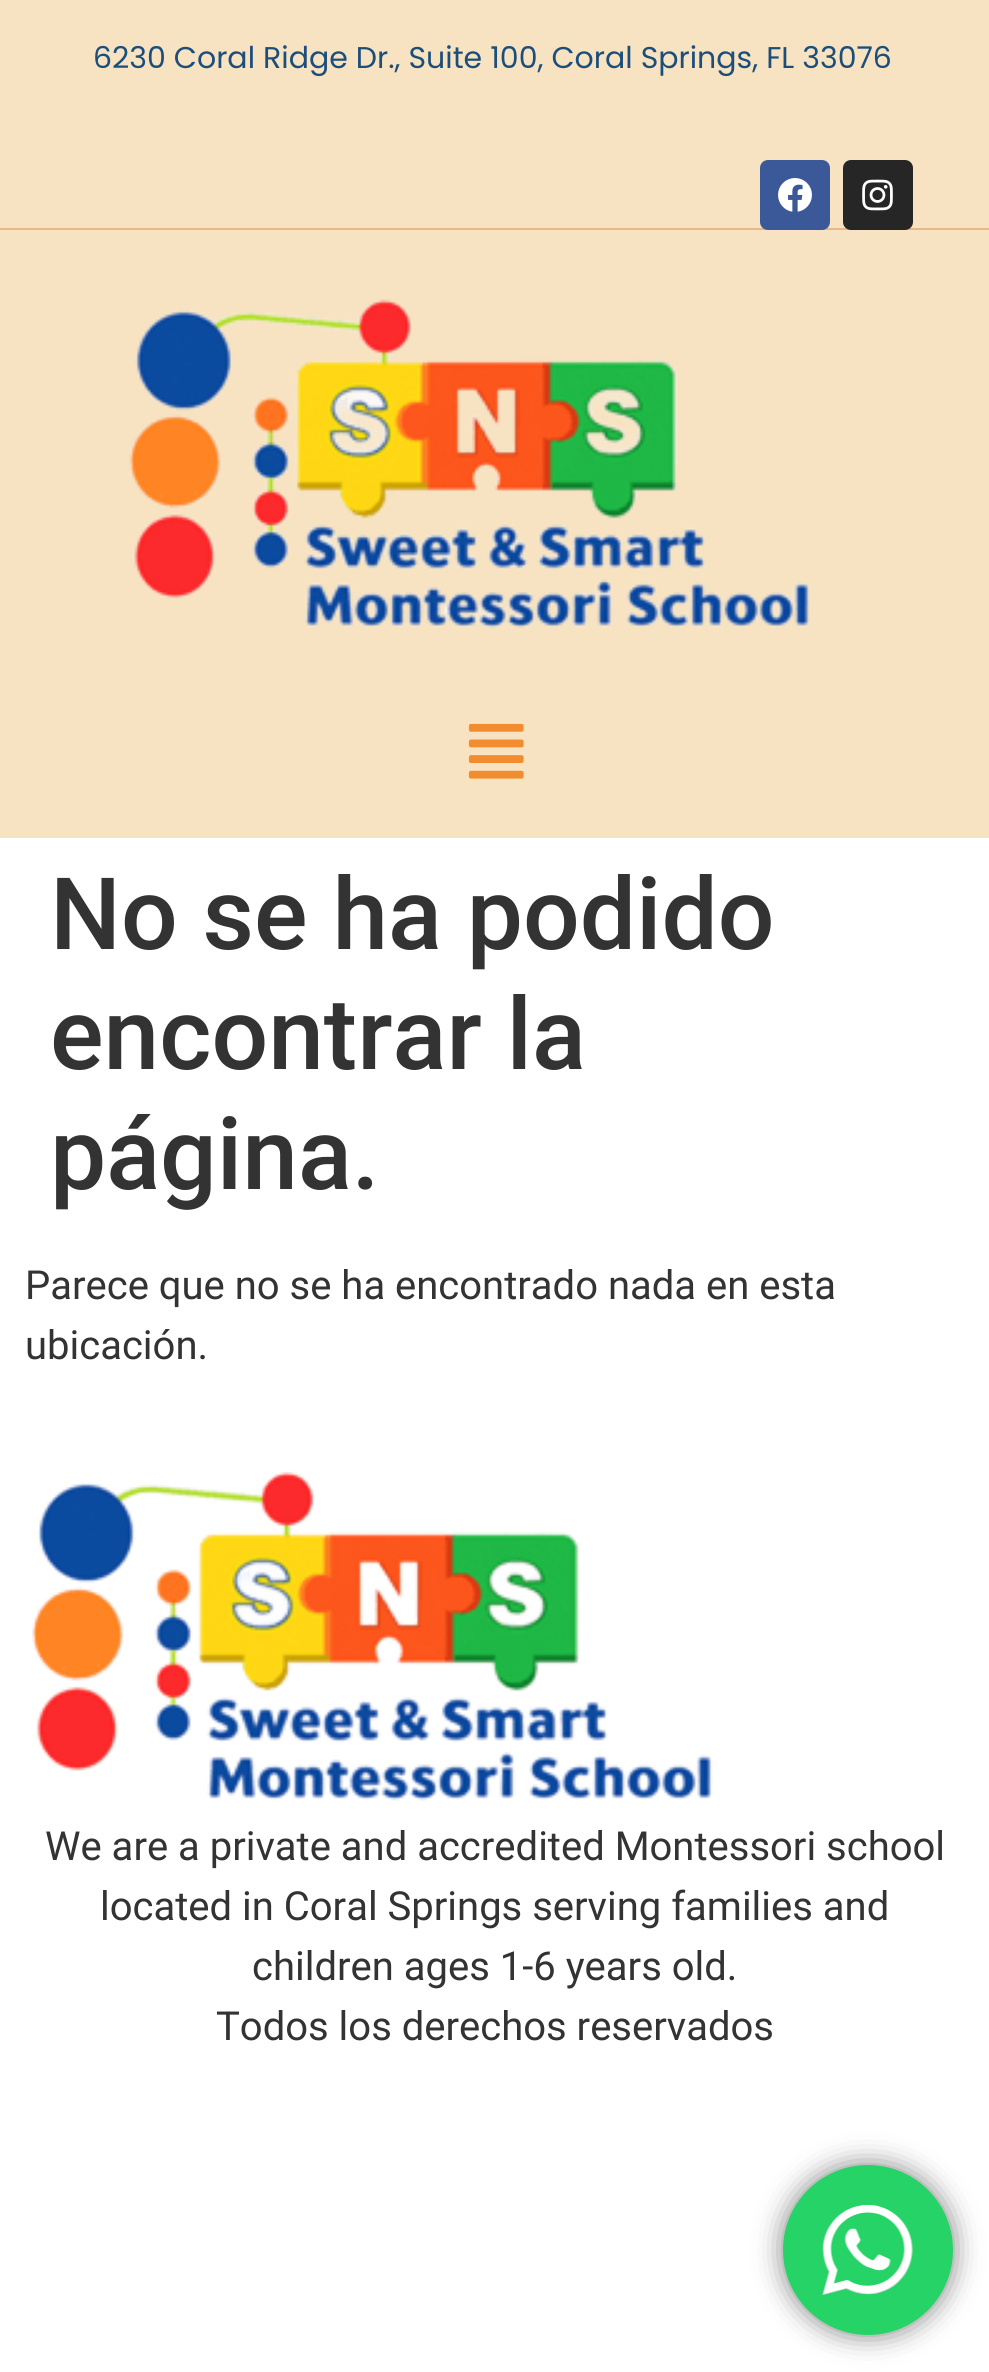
#include <cairo.h>
#include <math.h>
#include <stddef.h>

typedef struct { double x, y; const char *s; } line_t;

static void ink(cairo_t *ctx, unsigned color) {
    cairo_set_source_rgb(ctx, (color >> 16) / 255.0, (color >> 8 & 255) / 255.0, (color & 255) / 255.0);
}

static void round_path(cairo_t *ctx, double x, double y, double w, double h, double r) {
    cairo_new_sub_path(ctx);
    cairo_arc(ctx, x + w - r, y + h - r, r, 0, M_PI / 2);
    cairo_arc(ctx, x + r, y + h - r, r, M_PI / 2, M_PI);
    cairo_arc(ctx, x + r, y + r, r, M_PI, 1.5 * M_PI);
    cairo_arc(ctx, x + w - r, y + r, r, 1.5 * M_PI, 2 * M_PI);
    cairo_close_path(ctx);
}

static void blur_box(cairo_t *ctx, double x, double y, double w, double h, double r, double blur, double alpha) {
    cairo_push_group_with_content(ctx, CAIRO_CONTENT_ALPHA);
    cairo_set_operator(ctx, CAIRO_OPERATOR_SOURCE);
    for (int i = 15; i >= -15 && fmin(w, h) + blur * i / 3 > 0; i -= 2) {
        double e = blur * i / 6;
        cairo_set_source_rgba(ctx, 0, 0, 0, alpha * erfc((i - 1) / 8.5) / 2);
        round_path(ctx, x - e, y - e, w + 2 * e, h + 2 * e, fmax(0, fmin(r + e + blur * .6, fmin(w, h) / 2 + e)));
        cairo_fill(ctx);
    }
    cairo_pattern_t *soft = cairo_pop_group(ctx);
    cairo_mask(ctx, soft);
    cairo_pattern_destroy(soft);
}

static void paste(cairo_t *ctx, const char *path, double x, double y, double w, double h) {
    cairo_surface_t *image = cairo_image_surface_create_from_png(path);
    cairo_save(ctx);
    cairo_set_source_surface(ctx, image, x, y);
    cairo_rectangle(ctx, x, y, w, h);
    cairo_fill(ctx);
    cairo_restore(ctx);
    cairo_surface_destroy(image);
}

int main(void) {
    cairo_surface_t *surface = cairo_image_surface_create(CAIRO_FORMAT_RGB24, 989, 2372);
    cairo_t *ctx = cairo_create(surface);
    cairo_font_options_t *options = cairo_font_options_create();
    cairo_font_options_set_hint_metrics(options, CAIRO_HINT_METRICS_OFF);
    cairo_font_options_set_hint_style(options, CAIRO_HINT_STYLE_NONE);
    cairo_set_font_options(ctx, options);
    cairo_set_miter_limit(ctx, 4);
    ink(ctx, 0xFFFFFF);
    cairo_paint(ctx);
    ink(ctx, 0xF7E3C1);
    cairo_rectangle(ctx, 0, 0, 989, 228);
    cairo_fill(ctx);
    ink(ctx, 0xECB787);
    cairo_rectangle(ctx, 0, 228, 989, 2);
    cairo_fill(ctx);
    cairo_select_font_face(ctx, "Poppins", CAIRO_FONT_SLANT_NORMAL, CAIRO_FONT_WEIGHT_NORMAL);
    cairo_set_font_size(ctx, 30);
    ink(ctx, 0x1B4E7B);
    cairo_move_to(ctx, 93, 68);
    cairo_show_text(ctx, "6230 Coral Ridge Dr., Suite 100, Coral Springs, FL 33076");
    ink(ctx, 0x3B5998);
    round_path(ctx, 760, 160, 70, 70, 8);
    cairo_fill(ctx);
    paste(ctx, "media/1.png", 778, 178, 34, 34);
    ink(ctx, 0x262626);
    round_path(ctx, 843, 160, 70, 70, 8);
    cairo_fill(ctx);
    paste(ctx, "media/2.png", 862, 179, 31, 32);
    ink(ctx, 0xF7E3C1);
    cairo_rectangle(ctx, 0, 230, 989, 608);
    cairo_fill(ctx);
    paste(ctx, "media/3.png", 129, 299, 681, 330);
    paste(ctx, "media/4.png", 468, 723, 56, 56);
    cairo_select_font_face(ctx, "Roboto Medium", CAIRO_FONT_SLANT_NORMAL, CAIRO_FONT_WEIGHT_NORMAL);
    cairo_set_font_size(ctx, 100);
    ink(ctx, 0x333333);
    {
        static const line_t items[] = {
            {50, 949, "No se ha podido"},
            {50, 1069, "encontrar la"},
            {50, 1189, "página."},
        };
        for (size_t i = 0; i < sizeof items / sizeof *items; i++) {
            cairo_move_to(ctx, items[i].x, items[i].y);
            cairo_show_text(ctx, items[i].s);
        }
    }
    cairo_select_font_face(ctx, "Roboto", CAIRO_FONT_SLANT_NORMAL, CAIRO_FONT_WEIGHT_NORMAL);
    cairo_set_font_size(ctx, 40);
    cairo_move_to(ctx, 25, 1299);
    cairo_show_text(ctx, "Parece que no se ha encontrado nada en esta");
    cairo_move_to(ctx, 25, 1359);
    cairo_show_text(ctx, "ubicación.");
    paste(ctx, "media/5.png", 32, 1471, 681, 330);
    {
        static const line_t items[] = {
            {45, 1860, "We are a private and accredited Montessori school"},
            {100, 1920, "located in Coral Springs serving families and"},
            {252, 1980, "children ages 1-6 years old."},
            {216, 2040, "Todos los derechos reservados"},
        };
        for (size_t i = 0; i < sizeof items / sizeof *items; i++) {
            cairo_move_to(ctx, items[i].x, items[i].y);
            cairo_show_text(ctx, items[i].s);
        }
    }
    ink(ctx, 0x000000);
    blur_box(ctx, 783, 2165, 170, 170, 85, 14, 0.5);
    ink(ctx, 0x25D366);
    cairo_arc(ctx, 868, 2250, 85, 0, 2 * M_PI);
    cairo_fill(ctx);
    paste(ctx, "media/6.png", 822, 2205, 91, 90);
    cairo_surface_write_to_png(surface, "image.png");
    cairo_font_options_destroy(options);
    cairo_destroy(ctx);
    cairo_surface_destroy(surface);
    return 0;
}
